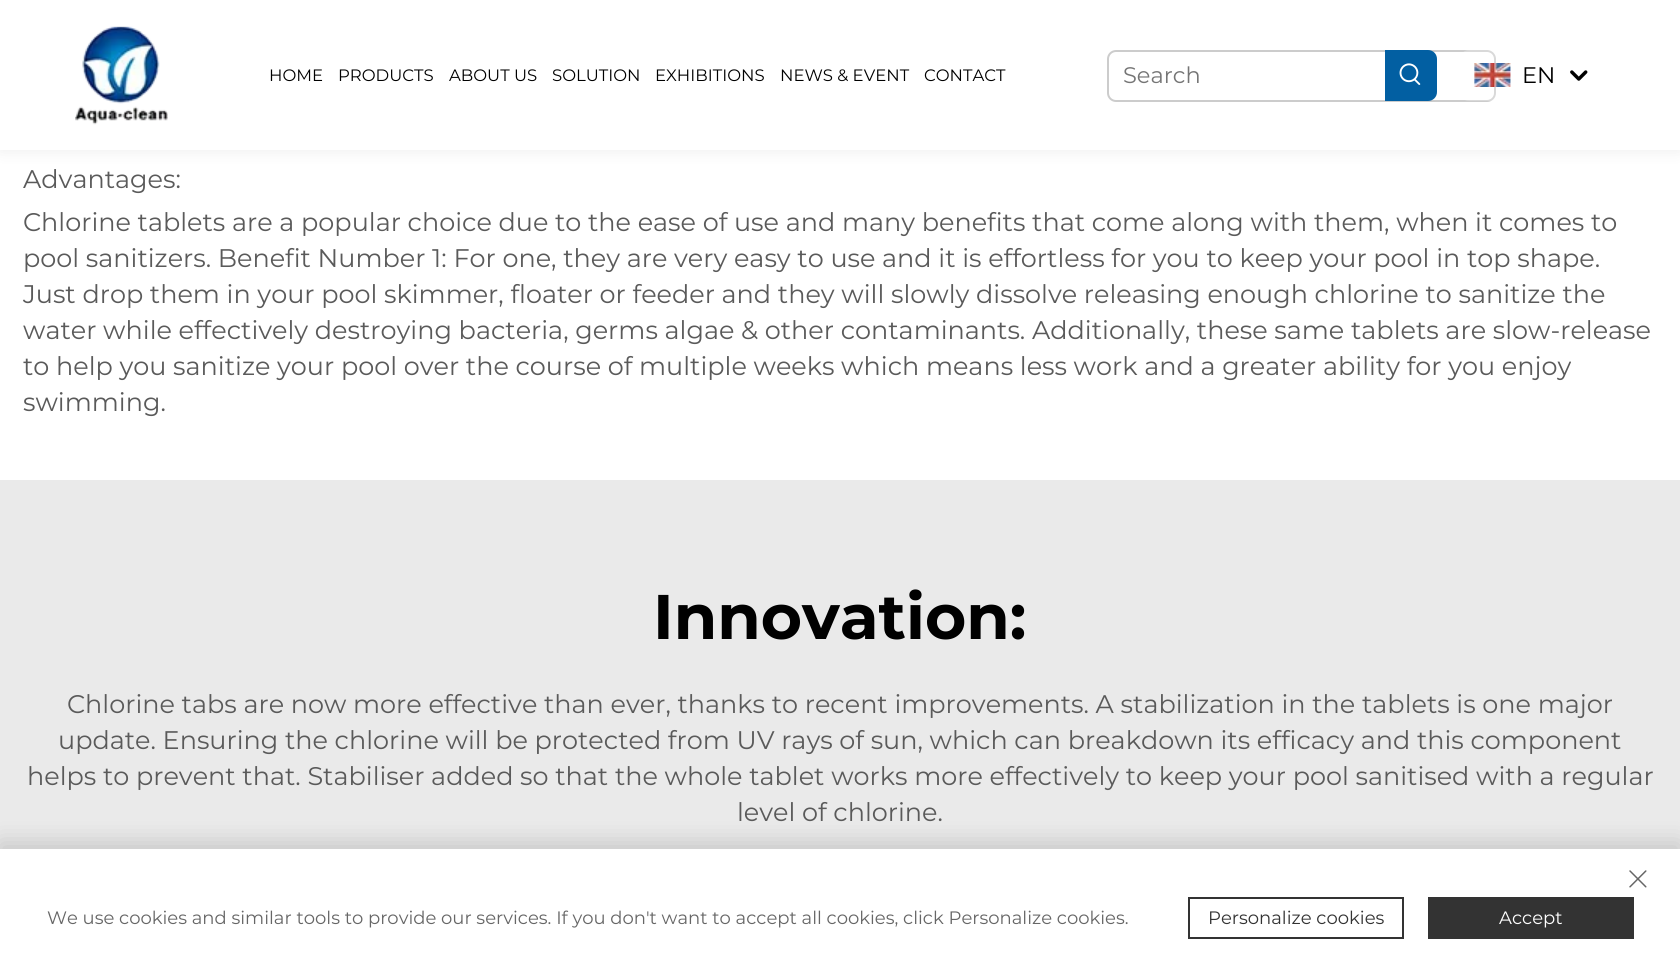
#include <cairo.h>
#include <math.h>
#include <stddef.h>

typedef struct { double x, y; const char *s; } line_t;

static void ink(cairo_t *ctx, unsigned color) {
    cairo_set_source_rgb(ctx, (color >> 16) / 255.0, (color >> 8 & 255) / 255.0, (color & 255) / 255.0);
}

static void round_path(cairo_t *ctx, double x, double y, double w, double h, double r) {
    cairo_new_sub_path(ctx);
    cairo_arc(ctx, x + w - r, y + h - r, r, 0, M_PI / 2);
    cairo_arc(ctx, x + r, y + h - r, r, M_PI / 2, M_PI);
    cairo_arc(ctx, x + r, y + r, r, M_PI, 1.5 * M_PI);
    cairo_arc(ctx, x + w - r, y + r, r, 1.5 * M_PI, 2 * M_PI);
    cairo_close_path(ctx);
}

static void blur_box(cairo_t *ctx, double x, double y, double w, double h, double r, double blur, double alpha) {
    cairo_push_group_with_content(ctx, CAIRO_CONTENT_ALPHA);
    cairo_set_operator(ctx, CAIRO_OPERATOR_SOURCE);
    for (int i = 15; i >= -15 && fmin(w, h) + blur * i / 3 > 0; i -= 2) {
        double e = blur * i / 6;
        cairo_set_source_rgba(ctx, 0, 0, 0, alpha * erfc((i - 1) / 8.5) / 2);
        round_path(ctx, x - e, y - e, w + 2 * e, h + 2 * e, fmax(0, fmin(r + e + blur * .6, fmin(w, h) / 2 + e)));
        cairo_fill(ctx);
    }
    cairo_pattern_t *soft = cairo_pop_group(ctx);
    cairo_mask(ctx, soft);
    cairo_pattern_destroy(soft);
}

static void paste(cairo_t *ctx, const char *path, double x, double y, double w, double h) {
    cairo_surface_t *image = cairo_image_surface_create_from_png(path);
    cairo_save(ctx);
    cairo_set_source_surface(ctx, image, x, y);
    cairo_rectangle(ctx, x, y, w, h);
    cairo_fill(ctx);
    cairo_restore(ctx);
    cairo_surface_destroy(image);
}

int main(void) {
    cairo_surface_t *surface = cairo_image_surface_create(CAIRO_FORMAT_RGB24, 1680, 962);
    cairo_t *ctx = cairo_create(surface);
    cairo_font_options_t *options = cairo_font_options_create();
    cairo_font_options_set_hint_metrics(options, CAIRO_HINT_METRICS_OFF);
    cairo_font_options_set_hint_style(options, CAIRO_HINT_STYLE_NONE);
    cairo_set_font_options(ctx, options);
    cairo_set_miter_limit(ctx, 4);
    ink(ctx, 0xFFFFFF);
    cairo_paint(ctx);
    ink(ctx, 0x3F3E3E);
    blur_box(ctx, 0, 0, 1680, 150, 0, 7.5, 0.1);
    ink(ctx, 0xFFFFFF);
    cairo_rectangle(ctx, 0, 0, 1680, 150);
    cairo_fill(ctx);
    paste(ctx, "media/1.png", 75, 26, 93, 99);
    cairo_select_font_face(ctx, "Montserrat", CAIRO_FONT_SLANT_NORMAL, CAIRO_FONT_WEIGHT_NORMAL);
    cairo_set_font_size(ctx, 16.5);
    ink(ctx, 0x000000);
    {
        static const line_t items[] = {
            {269, 81, "HOME"},
            {338, 81, "PRODUCTS"},
            {449, 81, "ABOUT US"},
            {552, 81, "SOLUTION"},
            {655, 81, "EXHIBITIONS"},
            {780, 81, "NEWS & EVENT"},
            {924, 81, "CONTACT"},
        };
        for (size_t i = 0; i < sizeof items / sizeof *items; i++) {
            cairo_move_to(ctx, items[i].x, items[i].y);
            cairo_show_text(ctx, items[i].s);
        }
    }
    round_path(ctx, 1108, 51, 387, 50, 8);
    ink(ctx, 0xCCCCCC);
    cairo_stroke(ctx);
    cairo_set_font_size(ctx, 22.5);
    ink(ctx, 0x757575);
    cairo_move_to(ctx, 1123, 83);
    cairo_show_text(ctx, "Search");
    ink(ctx, 0x025FA2);
    cairo_new_path(ctx);
    cairo_move_to(ctx, 1385, 50);
    cairo_line_to(ctx, 1428, 50);
    cairo_curve_to(ctx, 1433, 50, 1437, 54, 1437, 59);
    cairo_line_to(ctx, 1437, 92);
    cairo_curve_to(ctx, 1437, 97, 1433, 101, 1428, 101);
    cairo_line_to(ctx, 1385, 101);
    cairo_close_path(ctx);
    cairo_fill(ctx);
    paste(ctx, "media/2.png", 1399, 63, 22, 22);
    cairo_set_source_rgba(ctx, 1, 1, 1, 0.25);
    round_path(ctx, 1460, 50, 145, 51, 9);
    cairo_fill(ctx);
    paste(ctx, "media/3.png", 1474, 63, 37, 24);
    ink(ctx, 0x000000);
    cairo_move_to(ctx, 1522, 83);
    cairo_show_text(ctx, "EN");
    paste(ctx, "media/4.png", 1570, 70, 18, 11);
    cairo_set_font_size(ctx, 25.5);
    ink(ctx, 0x5A5A5A);
    {
        static const line_t items[] = {
            {23, 188, "Advantages:"},
            {23, 231, "Chlorine tablets are a popular choice due to the ease of use and many benefits that come along with them, when it comes to"},
            {23, 267, "pool sanitizers. Benefit Number 1: For one, they are very easy to use and it is effortless for you to keep your pool in top shape."},
            {23, 303, "Just drop them in your pool skimmer, floater or feeder and they will slowly dissolve releasing enough chlorine to sanitize the"},
            {23, 339, "water while effectively destroying bacteria, germs algae & other contaminants. Additionally, these same tablets are slow-release"},
            {23, 375, "to help you sanitize your pool over the course of multiple weeks which means less work and a greater ability for you enjoy"},
            {23, 411, "swimming."},
        };
        for (size_t i = 0; i < sizeof items / sizeof *items; i++) {
            cairo_move_to(ctx, items[i].x, items[i].y);
            cairo_show_text(ctx, items[i].s);
        }
    }
    ink(ctx, 0xEAEAEA);
    cairo_rectangle(ctx, 0, 480, 1680, 369);
    cairo_fill(ctx);
    cairo_select_font_face(ctx, "Montserrat", CAIRO_FONT_SLANT_NORMAL, CAIRO_FONT_WEIGHT_BOLD);
    cairo_set_font_size(ctx, 63);
    ink(ctx, 0x000000);
    cairo_move_to(ctx, 653, 639);
    cairo_show_text(ctx, "Innovation:");
    cairo_select_font_face(ctx, "Montserrat", CAIRO_FONT_SLANT_NORMAL, CAIRO_FONT_WEIGHT_NORMAL);
    cairo_set_font_size(ctx, 25.5);
    ink(ctx, 0x5A5A5A);
    {
        static const line_t items[] = {
            {67, 713, "Chlorine tabs are now more effective than ever, thanks to recent improvements. A stabilization in the tablets is one major"},
            {58, 749, "update. Ensuring the chlorine will be protected from UV rays of sun, which can breakdown its efficacy and this component"},
            {27, 785, "helps to prevent that. Stabiliser added so that the whole tablet works more effectively to keep your pool sanitised with a regular"},
            {737, 821, "level of chlorine."},
        };
        for (size_t i = 0; i < sizeof items / sizeof *items; i++) {
            cairo_move_to(ctx, items[i].x, items[i].y);
            cairo_show_text(ctx, items[i].s);
        }
    }
    ink(ctx, 0x000000);
    blur_box(ctx, 0, 843, 1680, 114, 0, 12, 0.16);
    ink(ctx, 0xFFFFFF);
    cairo_rectangle(ctx, 0, 849, 1680, 113);
    cairo_fill(ctx);
    paste(ctx, "media/5.png", 1629, 870, 18, 18);
    cairo_set_font_size(ctx, 18);
    ink(ctx, 0x666666);
    cairo_move_to(ctx, 47, 924);
    cairo_show_text(ctx, "We use cookies and similar tools to provide our services. If you don't want to accept all cookies, click Personalize cookies.");
    cairo_rectangle(ctx, 1189, 898, 214, 40);
    ink(ctx, 0x333333);
    cairo_stroke(ctx);
    cairo_move_to(ctx, 1208, 924);
    cairo_show_text(ctx, "Personalize cookies");
    cairo_rectangle(ctx, 1428, 897, 206, 42);
    cairo_fill(ctx);
    ink(ctx, 0xFFFFFF);
    cairo_move_to(ctx, 1499, 924);
    cairo_show_text(ctx, "Accept");
    cairo_surface_write_to_png(surface, "image.png");
    cairo_font_options_destroy(options);
    cairo_destroy(ctx);
    cairo_surface_destroy(surface);
    return 0;
}
